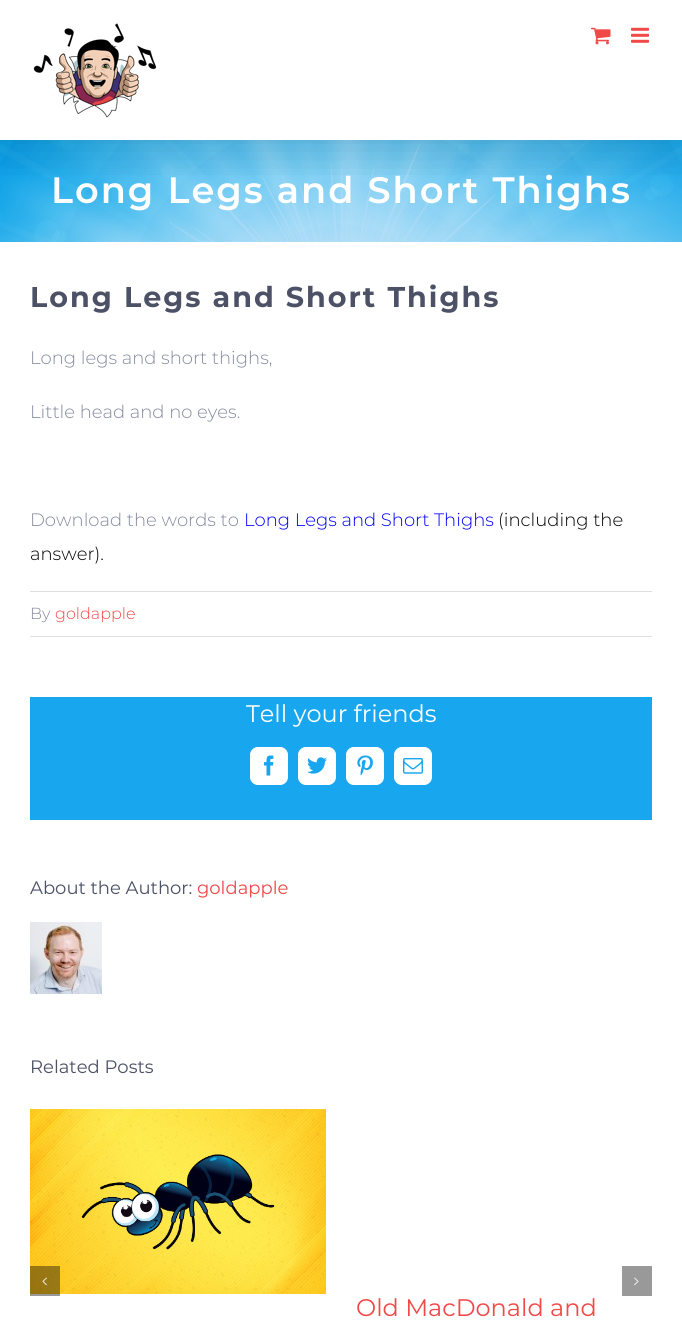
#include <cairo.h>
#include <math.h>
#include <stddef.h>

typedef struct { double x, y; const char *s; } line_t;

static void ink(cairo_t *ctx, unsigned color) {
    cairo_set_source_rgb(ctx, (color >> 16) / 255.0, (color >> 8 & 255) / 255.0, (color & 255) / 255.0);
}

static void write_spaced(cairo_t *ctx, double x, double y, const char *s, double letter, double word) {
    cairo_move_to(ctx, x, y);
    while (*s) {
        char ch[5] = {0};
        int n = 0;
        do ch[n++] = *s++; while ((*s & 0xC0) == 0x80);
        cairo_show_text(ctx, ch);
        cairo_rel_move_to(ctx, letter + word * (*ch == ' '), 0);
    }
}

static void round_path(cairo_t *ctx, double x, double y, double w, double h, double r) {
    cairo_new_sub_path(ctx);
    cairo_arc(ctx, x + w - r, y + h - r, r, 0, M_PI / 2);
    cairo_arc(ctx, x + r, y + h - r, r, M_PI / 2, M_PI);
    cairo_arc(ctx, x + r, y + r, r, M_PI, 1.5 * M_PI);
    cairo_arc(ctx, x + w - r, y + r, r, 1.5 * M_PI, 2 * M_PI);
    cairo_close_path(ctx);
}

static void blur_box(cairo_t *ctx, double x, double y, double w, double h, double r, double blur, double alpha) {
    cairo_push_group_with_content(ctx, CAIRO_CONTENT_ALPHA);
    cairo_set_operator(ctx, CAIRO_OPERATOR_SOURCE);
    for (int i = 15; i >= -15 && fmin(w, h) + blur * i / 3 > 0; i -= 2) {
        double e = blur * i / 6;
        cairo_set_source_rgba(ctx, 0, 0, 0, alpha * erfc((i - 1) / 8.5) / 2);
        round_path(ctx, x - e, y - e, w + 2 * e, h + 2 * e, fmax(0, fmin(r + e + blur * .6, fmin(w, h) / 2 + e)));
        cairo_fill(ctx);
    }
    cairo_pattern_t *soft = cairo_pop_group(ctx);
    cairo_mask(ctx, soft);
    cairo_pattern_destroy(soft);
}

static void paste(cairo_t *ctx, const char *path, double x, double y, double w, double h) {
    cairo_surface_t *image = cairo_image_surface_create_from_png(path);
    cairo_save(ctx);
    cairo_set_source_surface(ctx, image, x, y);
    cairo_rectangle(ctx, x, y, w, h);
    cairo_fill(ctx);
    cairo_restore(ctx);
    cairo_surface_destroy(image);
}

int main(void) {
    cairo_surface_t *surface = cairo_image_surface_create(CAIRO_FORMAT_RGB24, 682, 1325);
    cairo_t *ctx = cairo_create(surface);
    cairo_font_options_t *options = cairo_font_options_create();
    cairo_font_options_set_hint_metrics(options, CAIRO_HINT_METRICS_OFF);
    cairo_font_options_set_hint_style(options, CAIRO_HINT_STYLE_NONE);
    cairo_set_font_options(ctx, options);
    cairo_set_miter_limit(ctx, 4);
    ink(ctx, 0xFFFFFF);
    cairo_paint(ctx);
    paste(ctx, "media/4.png", 0, 140, 682, 102);
    cairo_save(ctx);
    cairo_rectangle(ctx, 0, 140, 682, 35);
    cairo_clip(ctx);
    ink(ctx, 0x000000);
    blur_box(ctx, 2, 12, 678, 136, 0, 25, 0.14);
    cairo_restore(ctx);
    paste(ctx, "media/1.png", 33, 23, 124, 95);
    paste(ctx, "media/2.png", 591, 27, 20, 18);
    paste(ctx, "media/3.png", 631, 27, 18, 16);
    cairo_select_font_face(ctx, "Montserrat SemiBold", CAIRO_FONT_SLANT_NORMAL, CAIRO_FONT_WEIGHT_NORMAL);
    cairo_set_font_size(ctx, 36.7);
    ink(ctx, 0xFFFFFF);
    write_spaced(ctx, 51, 203, "Long Legs and Short Thighs", 2, 0);
    cairo_select_font_face(ctx, "Montserrat", CAIRO_FONT_SLANT_NORMAL, CAIRO_FONT_WEIGHT_BOLD);
    cairo_set_font_size(ctx, 28.6);
    ink(ctx, 0x4C5166);
    write_spaced(ctx, 30, 307, "Long Legs and Short Thighs", 2, 0);
    cairo_select_font_face(ctx, "Montserrat Light", CAIRO_FONT_SLANT_NORMAL, CAIRO_FONT_WEIGHT_NORMAL);
    cairo_set_font_size(ctx, 18);
    ink(ctx, 0x858A9F);
    {
        static const line_t items[] = {
            {30, 364, "Long legs and short thighs,"},
            {30, 418, "Little head and no eyes."},
            {30, 526, "Download the words to"},
        };
        for (size_t i = 0; i < sizeof items / sizeof *items; i++) {
            cairo_move_to(ctx, items[i].x, items[i].y);
            cairo_show_text(ctx, items[i].s);
        }
    }
    ink(ctx, 0x0000FF);
    cairo_move_to(ctx, 244, 526);
    cairo_show_text(ctx, "Long Legs and Short Thighs");
    ink(ctx, 0x000000);
    cairo_move_to(ctx, 498, 526);
    cairo_show_text(ctx, "(including the");
    cairo_move_to(ctx, 30, 560);
    cairo_show_text(ctx, "answer).");
    ink(ctx, 0xE0DEDE);
    cairo_rectangle(ctx, 30, 591, 622, 1);
    cairo_fill(ctx);
    cairo_rectangle(ctx, 30, 636, 622, 1);
    cairo_fill(ctx);
    cairo_set_font_size(ctx, 16);
    ink(ctx, 0x858A9F);
    cairo_move_to(ctx, 30, 619);
    cairo_show_text(ctx, "By");
    ink(ctx, 0xF14848);
    cairo_move_to(ctx, 55, 619);
    cairo_show_text(ctx, "goldapple");
    ink(ctx, 0x18A7EF);
    cairo_rectangle(ctx, 30, 697, 622, 123);
    cairo_fill(ctx);
    cairo_select_font_face(ctx, "Montserrat", CAIRO_FONT_SLANT_NORMAL, CAIRO_FONT_WEIGHT_NORMAL);
    cairo_set_font_size(ctx, 24);
    ink(ctx, 0xFFFFFF);
    cairo_move_to(ctx, 246, 722);
    cairo_show_text(ctx, "Tell your friends");
    round_path(ctx, 250.5, 747.5, 37, 37, 7.5);
    cairo_fill_preserve(ctx);
    cairo_set_line_width(ctx, 1);
    cairo_stroke(ctx);
    paste(ctx, "media/5.png", 264, 755, 10, 21);
    round_path(ctx, 298.5, 747.5, 37, 37, 7.5);
    cairo_fill_preserve(ctx);
    cairo_stroke(ctx);
    paste(ctx, "media/6.png", 307, 757, 20, 17);
    round_path(ctx, 346.5, 747.5, 37, 37, 7.5);
    cairo_fill_preserve(ctx);
    cairo_stroke(ctx);
    paste(ctx, "media/7.png", 357, 755, 16, 21);
    round_path(ctx, 394.5, 747.5, 37, 37, 7.5);
    cairo_fill_preserve(ctx);
    cairo_stroke(ctx);
    paste(ctx, "media/8.png", 403, 758, 20, 16);
    cairo_set_font_size(ctx, 18);
    ink(ctx, 0x4C5166);
    cairo_move_to(ctx, 30, 894);
    cairo_show_text(ctx, "About the Author:");
    ink(ctx, 0xF14848);
    cairo_move_to(ctx, 197, 894);
    cairo_show_text(ctx, "goldapple");
    paste(ctx, "media/9.png", 30, 922, 72, 72);
    ink(ctx, 0x4C5166);
    cairo_move_to(ctx, 30, 1073);
    cairo_show_text(ctx, "Related Posts");
    paste(ctx, "media/12.png", 30, 1109, 296, 185);
    cairo_set_source_rgba(ctx, 0, 0, 0, 0.4);
    cairo_rectangle(ctx, 30, 1266, 30, 30);
    cairo_fill(ctx);
    paste(ctx, "media/10.png", 42, 1277, 5, 9);
    ink(ctx, 0x999999);
    cairo_rectangle(ctx, 622, 1266, 30, 30);
    cairo_fill(ctx);
    paste(ctx, "media/11.png", 634, 1277, 5, 9);
    cairo_set_font_size(ctx, 24);
    ink(ctx, 0xF14848);
    cairo_move_to(ctx, 356, 1316);
    cairo_show_text(ctx, "Old MacDonald and");
    cairo_surface_write_to_png(surface, "image.png");
    cairo_font_options_destroy(options);
    cairo_destroy(ctx);
    cairo_surface_destroy(surface);
    return 0;
}
